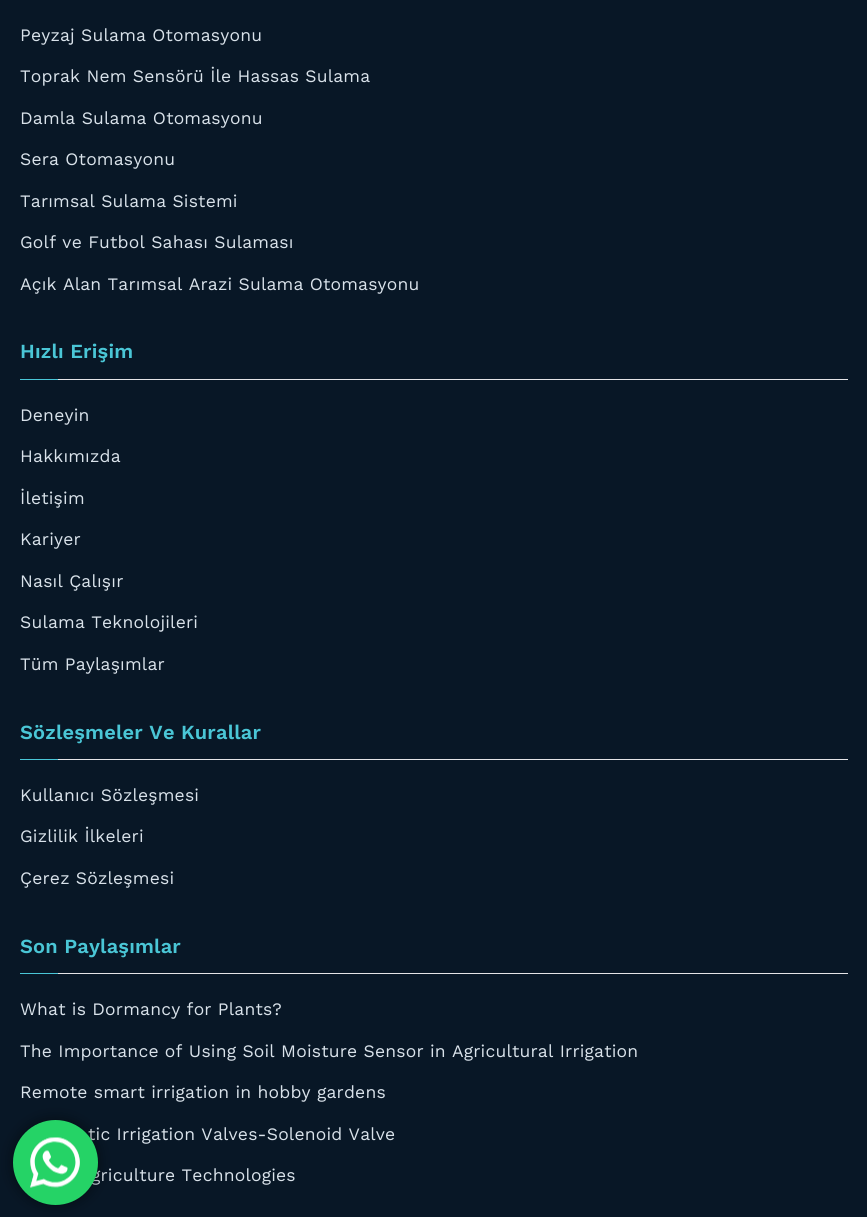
#include <cairo.h>
#include <math.h>
#include <stddef.h>

typedef struct { double x, y; const char *s; } line_t;

static void ink(cairo_t *ctx, unsigned color) {
    cairo_set_source_rgb(ctx, (color >> 16) / 255.0, (color >> 8 & 255) / 255.0, (color & 255) / 255.0);
}

static void write_spaced(cairo_t *ctx, double x, double y, const char *s, double letter, double word) {
    cairo_move_to(ctx, x, y);
    while (*s) {
        char ch[5] = {0};
        int n = 0;
        do ch[n++] = *s++; while ((*s & 0xC0) == 0x80);
        cairo_show_text(ctx, ch);
        cairo_rel_move_to(ctx, letter + word * (*ch == ' '), 0);
    }
}

static void round_path(cairo_t *ctx, double x, double y, double w, double h, double r) {
    cairo_new_sub_path(ctx);
    cairo_arc(ctx, x + w - r, y + h - r, r, 0, M_PI / 2);
    cairo_arc(ctx, x + r, y + h - r, r, M_PI / 2, M_PI);
    cairo_arc(ctx, x + r, y + r, r, M_PI, 1.5 * M_PI);
    cairo_arc(ctx, x + w - r, y + r, r, 1.5 * M_PI, 2 * M_PI);
    cairo_close_path(ctx);
}

static void blur_box(cairo_t *ctx, double x, double y, double w, double h, double r, double blur, double alpha) {
    cairo_push_group_with_content(ctx, CAIRO_CONTENT_ALPHA);
    cairo_set_operator(ctx, CAIRO_OPERATOR_SOURCE);
    for (int i = 15; i >= -15 && fmin(w, h) + blur * i / 3 > 0; i -= 2) {
        double e = blur * i / 6;
        cairo_set_source_rgba(ctx, 0, 0, 0, alpha * erfc((i - 1) / 8.5) / 2);
        round_path(ctx, x - e, y - e, w + 2 * e, h + 2 * e, fmax(0, fmin(r + e + blur * .6, fmin(w, h) / 2 + e)));
        cairo_fill(ctx);
    }
    cairo_pattern_t *soft = cairo_pop_group(ctx);
    cairo_mask(ctx, soft);
    cairo_pattern_destroy(soft);
}

static void paste(cairo_t *ctx, const char *path, double x, double y, double w, double h) {
    cairo_surface_t *image = cairo_image_surface_create_from_png(path);
    cairo_save(ctx);
    cairo_set_source_surface(ctx, image, x, y);
    cairo_rectangle(ctx, x, y, w, h);
    cairo_fill(ctx);
    cairo_restore(ctx);
    cairo_surface_destroy(image);
}

int main(void) {
    cairo_surface_t *surface = cairo_image_surface_create(CAIRO_FORMAT_RGB24, 867, 1217);
    cairo_t *ctx = cairo_create(surface);
    cairo_font_options_t *options = cairo_font_options_create();
    cairo_font_options_set_hint_metrics(options, CAIRO_HINT_METRICS_OFF);
    cairo_font_options_set_hint_style(options, CAIRO_HINT_STYLE_NONE);
    cairo_set_font_options(ctx, options);
    cairo_set_miter_limit(ctx, 4);
    ink(ctx, 0x081726);
    cairo_paint(ctx);
    cairo_select_font_face(ctx, "Work Sans", CAIRO_FONT_SLANT_NORMAL, CAIRO_FONT_WEIGHT_NORMAL);
    cairo_set_font_size(ctx, 17.5);
    ink(ctx, 0xD9E2EA);
    {
        static const line_t items[] = {
            {20, 41, "Peyzaj Sulama Otomasyonu"},
            {20, 82, "Toprak Nem Sensörü İle Hassas Sulama"},
            {20, 124, "Damla Sulama Otomasyonu"},
            {20, 165, "Sera Otomasyonu"},
            {20, 207, "Tarımsal Sulama Sistemi"},
            {20, 248, "Golf ve Futbol Sahası Sulaması"},
            {20, 290, "Açık Alan Tarımsal Arazi Sulama Otomasyonu"},
        };
        for (size_t i = 0; i < sizeof items / sizeof *items; i++) {
            write_spaced(ctx, items[i].x, items[i].y, items[i].s, 0.2, 0);
        }
    }
    ink(ctx, 0xE4E4E7);
    cairo_rectangle(ctx, 58, 379, 790, 1);
    cairo_fill(ctx);
    cairo_select_font_face(ctx, "Work Sans SemiBold", CAIRO_FONT_SLANT_NORMAL, CAIRO_FONT_WEIGHT_NORMAL);
    cairo_set_font_size(ctx, 20);
    ink(ctx, 0x4AC6D6);
    write_spaced(ctx, 20, 358, "Hızlı Erişim", 0.2, 0);
    cairo_rectangle(ctx, 20, 379, 38, 1);
    cairo_fill(ctx);
    cairo_select_font_face(ctx, "Work Sans", CAIRO_FONT_SLANT_NORMAL, CAIRO_FONT_WEIGHT_NORMAL);
    cairo_set_font_size(ctx, 17.5);
    ink(ctx, 0xD9E2EA);
    {
        static const line_t items[] = {
            {20, 421, "Deneyin"},
            {20, 462, "Hakkımızda"},
            {20, 504, "İletişim"},
            {20, 545, "Kariyer"},
            {20, 587, "Nasıl Çalışır"},
            {20, 628, "Sulama Teknolojileri"},
            {20, 670, "Tüm Paylaşımlar"},
        };
        for (size_t i = 0; i < sizeof items / sizeof *items; i++) {
            write_spaced(ctx, items[i].x, items[i].y, items[i].s, 0.2, 0);
        }
    }
    ink(ctx, 0xE4E4E7);
    cairo_rectangle(ctx, 58, 759, 790, 1);
    cairo_fill(ctx);
    cairo_select_font_face(ctx, "Work Sans SemiBold", CAIRO_FONT_SLANT_NORMAL, CAIRO_FONT_WEIGHT_NORMAL);
    cairo_set_font_size(ctx, 20);
    ink(ctx, 0x4AC6D6);
    write_spaced(ctx, 20, 739, "Sözleşmeler Ve Kurallar", 0.2, 0);
    cairo_rectangle(ctx, 20, 759, 38, 1);
    cairo_fill(ctx);
    cairo_select_font_face(ctx, "Work Sans", CAIRO_FONT_SLANT_NORMAL, CAIRO_FONT_WEIGHT_NORMAL);
    cairo_set_font_size(ctx, 17.5);
    ink(ctx, 0xD9E2EA);
    {
        static const line_t items[] = {
            {20, 801, "Kullanıcı Sözleşmesi"},
            {20, 842, "Gizlilik İlkeleri"},
            {20, 884, "Çerez Sözleşmesi"},
        };
        for (size_t i = 0; i < sizeof items / sizeof *items; i++) {
            write_spaced(ctx, items[i].x, items[i].y, items[i].s, 0.2, 0);
        }
    }
    ink(ctx, 0xE4E4E7);
    cairo_rectangle(ctx, 58, 973, 790, 1);
    cairo_fill(ctx);
    cairo_select_font_face(ctx, "Work Sans SemiBold", CAIRO_FONT_SLANT_NORMAL, CAIRO_FONT_WEIGHT_NORMAL);
    cairo_set_font_size(ctx, 20);
    ink(ctx, 0x4AC6D6);
    write_spaced(ctx, 20, 953, "Son Paylaşımlar", 0.2, 0);
    cairo_rectangle(ctx, 20, 973, 38, 1);
    cairo_fill(ctx);
    cairo_select_font_face(ctx, "Work Sans", CAIRO_FONT_SLANT_NORMAL, CAIRO_FONT_WEIGHT_NORMAL);
    cairo_set_font_size(ctx, 17.5);
    ink(ctx, 0xD9E2EA);
    {
        static const line_t items[] = {
            {20, 1015, "What is Dormancy for Plants?"},
            {20, 1057, "The Importance of Using Soil Moisture Sensor in Agricultural Irrigation"},
            {20, 1098, "Remote smart irrigation in hobby gardens"},
            {88, 1140, "tic Irrigation Valves-Solenoid Valve"},
            {91, 1181, "griculture Technologies"},
        };
        for (size_t i = 0; i < sizeof items / sizeof *items; i++) {
            write_spaced(ctx, items[i].x, items[i].y, items[i].s, 0.2, 0);
        }
    }
    ink(ctx, 0x000000);
    blur_box(ctx, 13, 1120, 85, 85, 42.5, 7, 0.5);
    ink(ctx, 0x25D366);
    cairo_arc(ctx, 55.5, 1162.5, 42.5, 0, 2 * M_PI);
    cairo_fill(ctx);
    paste(ctx, "media/1.png", 30, 1137, 50, 51);
    cairo_surface_write_to_png(surface, "image.png");
    cairo_font_options_destroy(options);
    cairo_destroy(ctx);
    cairo_surface_destroy(surface);
    return 0;
}
